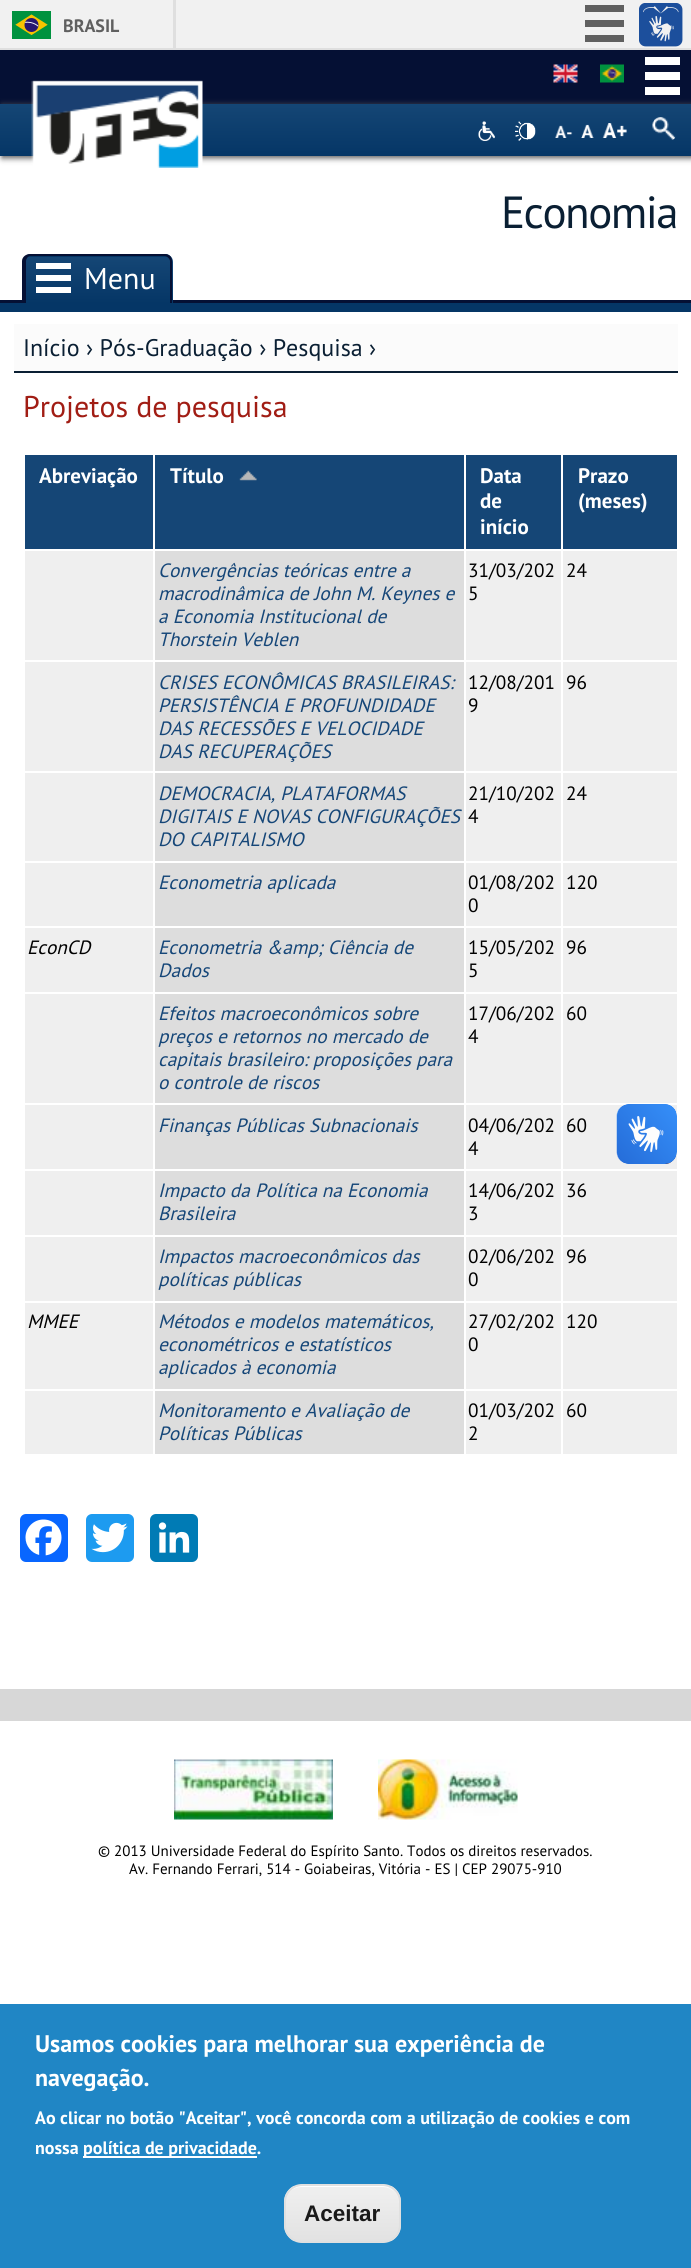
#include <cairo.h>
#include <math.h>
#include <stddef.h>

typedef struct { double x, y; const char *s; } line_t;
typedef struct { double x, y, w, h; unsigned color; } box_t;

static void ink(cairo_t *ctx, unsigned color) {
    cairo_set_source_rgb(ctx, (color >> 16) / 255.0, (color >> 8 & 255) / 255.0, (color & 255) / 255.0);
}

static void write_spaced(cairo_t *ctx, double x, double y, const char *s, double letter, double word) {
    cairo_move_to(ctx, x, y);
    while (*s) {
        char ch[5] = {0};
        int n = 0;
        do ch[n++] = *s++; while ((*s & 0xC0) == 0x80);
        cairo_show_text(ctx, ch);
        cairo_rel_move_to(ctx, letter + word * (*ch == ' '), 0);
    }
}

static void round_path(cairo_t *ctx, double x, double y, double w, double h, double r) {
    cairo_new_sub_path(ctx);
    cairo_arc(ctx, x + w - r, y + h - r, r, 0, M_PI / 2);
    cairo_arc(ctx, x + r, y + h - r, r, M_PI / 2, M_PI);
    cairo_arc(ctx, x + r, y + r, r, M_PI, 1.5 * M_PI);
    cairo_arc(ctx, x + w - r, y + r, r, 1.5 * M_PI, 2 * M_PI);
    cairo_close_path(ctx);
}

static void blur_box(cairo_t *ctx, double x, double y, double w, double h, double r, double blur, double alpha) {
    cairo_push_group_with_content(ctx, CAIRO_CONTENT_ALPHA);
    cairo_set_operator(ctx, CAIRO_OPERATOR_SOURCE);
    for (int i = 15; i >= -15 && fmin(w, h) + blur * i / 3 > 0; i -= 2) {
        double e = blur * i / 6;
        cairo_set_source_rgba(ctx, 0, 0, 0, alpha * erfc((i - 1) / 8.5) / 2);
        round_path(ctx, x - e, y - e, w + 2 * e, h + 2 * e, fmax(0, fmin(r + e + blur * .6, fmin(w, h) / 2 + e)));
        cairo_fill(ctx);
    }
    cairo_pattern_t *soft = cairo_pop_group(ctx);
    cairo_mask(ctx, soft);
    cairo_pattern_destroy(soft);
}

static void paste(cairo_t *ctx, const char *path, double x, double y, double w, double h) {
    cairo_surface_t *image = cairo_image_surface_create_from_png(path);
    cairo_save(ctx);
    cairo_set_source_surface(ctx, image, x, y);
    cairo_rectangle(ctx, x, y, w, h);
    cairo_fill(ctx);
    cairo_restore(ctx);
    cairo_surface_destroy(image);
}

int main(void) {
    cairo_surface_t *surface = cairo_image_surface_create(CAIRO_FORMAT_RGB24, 691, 2268);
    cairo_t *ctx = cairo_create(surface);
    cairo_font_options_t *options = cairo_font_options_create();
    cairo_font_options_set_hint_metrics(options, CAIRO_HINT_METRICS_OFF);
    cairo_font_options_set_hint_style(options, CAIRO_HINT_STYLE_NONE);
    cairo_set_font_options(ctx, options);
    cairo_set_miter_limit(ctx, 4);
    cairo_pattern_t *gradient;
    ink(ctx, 0xFFFFFF);
    cairo_paint(ctx);
    {
        static const box_t items[] = {
            {0, 0, 691, 48, 0xF1F1F1},
            {0, 48, 691, 2, 0xDFDFDF},
            {173, 0, 3, 48, 0xDFDFDF},
        };
        for (size_t i = 0; i < sizeof items / sizeof *items; i++) {
            ink(ctx, items[i].color);
            cairo_rectangle(ctx, items[i].x, items[i].y, items[i].w, items[i].h);
            cairo_fill(ctx);
        }
    }
    paste(ctx, "media/1.png", 12, 11, 39, 28);
    cairo_select_font_face(ctx, "PT Sans", CAIRO_FONT_SLANT_NORMAL, CAIRO_FONT_WEIGHT_BOLD);
    cairo_set_font_size(ctx, 18);
    ink(ctx, 0x606060);
    cairo_move_to(ctx, 63, 32);
    cairo_show_text(ctx, "BRASIL");
    {
        static const box_t items[] = {
            {585, 5, 39, 7, 0x606060},
            {585, 20, 39, 7, 0x606060},
            {585, 35, 39, 7, 0x606060},
        };
        for (size_t i = 0; i < sizeof items / sizeof *items; i++) {
            ink(ctx, items[i].color);
            cairo_rectangle(ctx, items[i].x, items[i].y, items[i].w, items[i].h);
            cairo_fill(ctx);
        }
    }
    paste(ctx, "media/2.png", 639, 3, 44, 44);
    ink(ctx, 0x051034);
    cairo_rectangle(ctx, 0, 50, 691, 54);
    cairo_fill(ctx);
    paste(ctx, "media/3.png", 553, 64, 25, 19);
    paste(ctx, "media/4.png", 600, 64, 24, 19);
    {
        static const box_t items[] = {
            {645, 57, 35, 8, 0xFFFFFF},
            {645, 72, 35, 8, 0xFFFFFF},
            {645, 87, 35, 8, 0xFFFFFF},
        };
        for (size_t i = 0; i < sizeof items / sizeof *items; i++) {
            ink(ctx, items[i].color);
            cairo_rectangle(ctx, items[i].x, items[i].y, items[i].w, items[i].h);
            cairo_fill(ctx);
        }
    }
    ink(ctx, 0x595959);
    blur_box(ctx, 2, 105, 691, 53, 0, 3, 1);
    gradient = cairo_pattern_create_linear(346, 103, 346, 156);
    cairo_pattern_add_color_stop_rgba(gradient, 0, 0.082, 0.275, 0.459, 1);
    cairo_pattern_add_color_stop_rgba(gradient, 1, 0.02, 0.212, 0.4, 1);
    cairo_set_source(ctx, gradient);
    cairo_pattern_destroy(gradient);
    cairo_rectangle(ctx, 0, 104, 691, 52);
    cairo_fill(ctx);
    paste(ctx, "media/5.png", 31, 80, 172, 88);
    paste(ctx, "media/6.png", 478, 121, 17, 20);
    paste(ctx, "media/7.png", 515, 121, 21, 20);
    paste(ctx, "media/8.png", 555, 125, 18, 13);
    paste(ctx, "media/9.png", 581, 124, 13, 14);
    paste(ctx, "media/10.png", 602, 123, 25, 15);
    paste(ctx, "media/11.png", 652, 117, 24, 23);
    cairo_select_font_face(ctx, "PT Sans", CAIRO_FONT_SLANT_NORMAL, CAIRO_FONT_WEIGHT_NORMAL);
    cairo_set_font_size(ctx, 45);
    ink(ctx, 0x0A1F33);
    write_spaced(ctx, 501, 228, "Economia", -1.5, 0);
    ink(ctx, 0x053666);
    cairo_rectangle(ctx, 0, 303, 691, 9);
    cairo_fill(ctx);
    ink(ctx, 0x051034);
    cairo_rectangle(ctx, 0, 300, 691, 3);
    cairo_fill(ctx);
    cairo_save(ctx);
    cairo_new_path(ctx);
    cairo_move_to(ctx, 31, 254);
    cairo_line_to(ctx, 165, 254);
    cairo_curve_to(ctx, 169.5, 254, 173, 257.5, 173, 262);
    cairo_line_to(ctx, 173, 303);
    cairo_line_to(ctx, 23, 303);
    cairo_line_to(ctx, 23, 262);
    cairo_curve_to(ctx, 23, 257.5, 26.5, 254, 31, 254);
    cairo_close_path(ctx);
    cairo_clip(ctx);
    gradient = cairo_pattern_create_linear(98, 210, 98, 257);
    cairo_pattern_add_color_stop_rgba(gradient, 0, 0.082, 0.275, 0.459, 1);
    cairo_pattern_add_color_stop_rgba(gradient, 1, 0.02, 0.212, 0.4, 1);
    cairo_set_source(ctx, gradient);
    cairo_pattern_destroy(gradient);
    cairo_rectangle(ctx, 23, 254, 150, 3);
    cairo_fill(ctx);
    gradient = cairo_pattern_create_linear(98, 257, 98, 303);
    cairo_pattern_add_color_stop_rgba(gradient, 0, 0.082, 0.275, 0.459, 1);
    cairo_pattern_add_color_stop_rgba(gradient, 1, 0.02, 0.212, 0.4, 1);
    cairo_set_source(ctx, gradient);
    cairo_pattern_destroy(gradient);
    cairo_rectangle(ctx, 26, 257, 147, 46);
    cairo_fill(ctx);
    cairo_restore(ctx);
    cairo_set_fill_rule(ctx, CAIRO_FILL_RULE_EVEN_ODD);
    cairo_new_path(ctx);
    cairo_move_to(ctx, 30, 254);
    cairo_line_to(ctx, 165, 254);
    cairo_curve_to(ctx, 169, 254, 172, 257, 172, 261);
    cairo_line_to(ctx, 172, 303);
    cairo_line_to(ctx, 22, 303);
    cairo_line_to(ctx, 22, 261);
    cairo_curve_to(ctx, 22, 257, 26, 254, 30, 254);
    cairo_close_path(ctx);
    cairo_move_to(ctx, 30, 256);
    cairo_line_to(ctx, 165, 256);
    cairo_curve_to(ctx, 167, 256, 170, 259, 170, 261);
    cairo_line_to(ctx, 170, 303);
    cairo_line_to(ctx, 26, 303);
    cairo_line_to(ctx, 26, 261);
    cairo_curve_to(ctx, 26, 259, 28, 256, 30, 256);
    cairo_close_path(ctx);
    cairo_fill(ctx);
    {
        static const box_t items[] = {
            {36, 263, 35, 6, 0xFFFFFF},
            {36, 275, 35, 6, 0xFFFFFF},
            {36, 287, 35, 6, 0xFFFFFF},
        };
        for (size_t i = 0; i < sizeof items / sizeof *items; i++) {
            ink(ctx, items[i].color);
            cairo_rectangle(ctx, items[i].x, items[i].y, items[i].w, items[i].h);
            cairo_fill(ctx);
        }
    }
    cairo_set_font_size(ctx, 30);
    cairo_move_to(ctx, 84, 289);
    cairo_show_text(ctx, "Menu");
    ink(ctx, 0xFBFBFB);
    cairo_rectangle(ctx, 14, 324, 664, 47);
    cairo_fill(ctx);
    ink(ctx, 0x0A1F33);
    cairo_rectangle(ctx, 14, 371, 664, 2);
    cairo_fill(ctx);
    cairo_set_font_size(ctx, 24);
    cairo_move_to(ctx, 23, 356);
    cairo_show_text(ctx, "Início › Pós-Graduação › Pesquisa ›");
    cairo_set_font_size(ctx, 30);
    ink(ctx, 0xA11D14);
    cairo_move_to(ctx, 23, 417);
    cairo_show_text(ctx, "Projetos de pesquisa");
    ink(ctx, 0x154676);
    cairo_rectangle(ctx, 25, 455, 128, 94);
    cairo_fill(ctx);
    cairo_select_font_face(ctx, "PT Sans", CAIRO_FONT_SLANT_NORMAL, CAIRO_FONT_WEIGHT_BOLD);
    cairo_set_font_size(ctx, 21);
    ink(ctx, 0xFFFFFF);
    cairo_move_to(ctx, 39, 483);
    cairo_show_text(ctx, "Abreviação");
    ink(ctx, 0x154676);
    cairo_rectangle(ctx, 155, 455, 309, 94);
    cairo_fill(ctx);
    ink(ctx, 0xFFFFFF);
    cairo_move_to(ctx, 170, 483);
    cairo_show_text(ctx, "Título");
    paste(ctx, "media/12.png", 239, 470, 18, 11);
    ink(ctx, 0x154676);
    cairo_rectangle(ctx, 466, 455, 95, 94);
    cairo_fill(ctx);
    ink(ctx, 0xFFFFFF);
    {
        static const line_t items[] = {
            {480, 483, "Data"},
            {480, 508, "de"},
            {480, 534, "início"},
        };
        for (size_t i = 0; i < sizeof items / sizeof *items; i++) {
            cairo_move_to(ctx, items[i].x, items[i].y);
            cairo_show_text(ctx, items[i].s);
        }
    }
    ink(ctx, 0x154676);
    cairo_rectangle(ctx, 563, 455, 114, 94);
    cairo_fill(ctx);
    ink(ctx, 0xFFFFFF);
    cairo_move_to(ctx, 578, 483);
    cairo_show_text(ctx, "Prazo");
    cairo_move_to(ctx, 578, 508);
    cairo_show_text(ctx, "(meses)");
    ink(ctx, 0xEFEFEF);
    cairo_rectangle(ctx, 25, 551, 652, 109);
    cairo_fill(ctx);
    ink(ctx, 0xDDDDDD);
    cairo_rectangle(ctx, 155, 551, 309, 109);
    cairo_fill(ctx);
    cairo_select_font_face(ctx, "PT Sans", CAIRO_FONT_SLANT_ITALIC, CAIRO_FONT_WEIGHT_NORMAL);
    cairo_set_font_size(ctx, 19.25);
    ink(ctx, 0x154678);
    {
        static const line_t items[] = {
            {158, 577, "Convergências teóricas entre a"},
            {158, 600, "macrodinâmica de John M. Keynes e"},
            {158, 623, "a Economia Institucional de"},
            {158, 646, "Thorstein Veblen"},
        };
        for (size_t i = 0; i < sizeof items / sizeof *items; i++) {
            cairo_move_to(ctx, items[i].x, items[i].y);
            cairo_show_text(ctx, items[i].s);
        }
    }
    cairo_select_font_face(ctx, "PT Sans", CAIRO_FONT_SLANT_NORMAL, CAIRO_FONT_WEIGHT_NORMAL);
    ink(ctx, 0x000000);
    {
        static const line_t items[] = {
            {468, 577, "31/03/202"},
            {468, 600, "5"},
            {566, 577, "24"},
        };
        for (size_t i = 0; i < sizeof items / sizeof *items; i++) {
            cairo_move_to(ctx, items[i].x, items[i].y);
            cairo_show_text(ctx, items[i].s);
        }
    }
    ink(ctx, 0xEFEFEF);
    cairo_rectangle(ctx, 25, 662, 652, 109);
    cairo_fill(ctx);
    ink(ctx, 0xDDDDDD);
    cairo_rectangle(ctx, 155, 662, 309, 109);
    cairo_fill(ctx);
    cairo_select_font_face(ctx, "PT Sans", CAIRO_FONT_SLANT_ITALIC, CAIRO_FONT_WEIGHT_NORMAL);
    ink(ctx, 0x154678);
    {
        static const line_t items[] = {
            {158, 689, "CRISES ECONÔMICAS BRASILEIRAS:"},
            {158, 712, "PERSISTÊNCIA E PROFUNDIDADE"},
            {158, 735, "DAS RECESSÕES E VELOCIDADE"},
            {158, 758, "DAS RECUPERAÇÕES"},
        };
        for (size_t i = 0; i < sizeof items / sizeof *items; i++) {
            cairo_move_to(ctx, items[i].x, items[i].y);
            cairo_show_text(ctx, items[i].s);
        }
    }
    cairo_select_font_face(ctx, "PT Sans", CAIRO_FONT_SLANT_NORMAL, CAIRO_FONT_WEIGHT_NORMAL);
    ink(ctx, 0x000000);
    {
        static const line_t items[] = {
            {468, 689, "12/08/201"},
            {468, 712, "9"},
            {566, 689, "96"},
        };
        for (size_t i = 0; i < sizeof items / sizeof *items; i++) {
            cairo_move_to(ctx, items[i].x, items[i].y);
            cairo_show_text(ctx, items[i].s);
        }
    }
    ink(ctx, 0xEFEFEF);
    cairo_rectangle(ctx, 25, 773, 652, 88);
    cairo_fill(ctx);
    ink(ctx, 0xDDDDDD);
    cairo_rectangle(ctx, 155, 773, 309, 88);
    cairo_fill(ctx);
    cairo_select_font_face(ctx, "PT Sans", CAIRO_FONT_SLANT_ITALIC, CAIRO_FONT_WEIGHT_NORMAL);
    ink(ctx, 0x154678);
    {
        static const line_t items[] = {
            {158, 800, "DEMOCRACIA, PLATAFORMAS"},
            {158, 823, "DIGITAIS E NOVAS CONFIGURAÇÕES"},
            {158, 846, "DO CAPITALISMO"},
        };
        for (size_t i = 0; i < sizeof items / sizeof *items; i++) {
            cairo_move_to(ctx, items[i].x, items[i].y);
            cairo_show_text(ctx, items[i].s);
        }
    }
    cairo_select_font_face(ctx, "PT Sans", CAIRO_FONT_SLANT_NORMAL, CAIRO_FONT_WEIGHT_NORMAL);
    ink(ctx, 0x000000);
    {
        static const line_t items[] = {
            {468, 800, "21/10/202"},
            {468, 823, "4"},
            {566, 800, "24"},
        };
        for (size_t i = 0; i < sizeof items / sizeof *items; i++) {
            cairo_move_to(ctx, items[i].x, items[i].y);
            cairo_show_text(ctx, items[i].s);
        }
    }
    ink(ctx, 0xEFEFEF);
    cairo_rectangle(ctx, 25, 863, 652, 63);
    cairo_fill(ctx);
    ink(ctx, 0xDDDDDD);
    cairo_rectangle(ctx, 155, 863, 309, 63);
    cairo_fill(ctx);
    cairo_select_font_face(ctx, "PT Sans", CAIRO_FONT_SLANT_ITALIC, CAIRO_FONT_WEIGHT_NORMAL);
    ink(ctx, 0x154678);
    cairo_move_to(ctx, 158, 889);
    cairo_show_text(ctx, "Econometria aplicada");
    cairo_select_font_face(ctx, "PT Sans", CAIRO_FONT_SLANT_NORMAL, CAIRO_FONT_WEIGHT_NORMAL);
    ink(ctx, 0x000000);
    {
        static const line_t items[] = {
            {468, 889, "01/08/202"},
            {468, 912, "0"},
            {566, 889, "120"},
        };
        for (size_t i = 0; i < sizeof items / sizeof *items; i++) {
            cairo_move_to(ctx, items[i].x, items[i].y);
            cairo_show_text(ctx, items[i].s);
        }
    }
    ink(ctx, 0xEFEFEF);
    cairo_rectangle(ctx, 25, 928, 652, 64);
    cairo_fill(ctx);
    cairo_select_font_face(ctx, "PT Sans", CAIRO_FONT_SLANT_ITALIC, CAIRO_FONT_WEIGHT_NORMAL);
    ink(ctx, 0x000000);
    cairo_move_to(ctx, 27, 954);
    cairo_show_text(ctx, "EconCD");
    ink(ctx, 0xDDDDDD);
    cairo_rectangle(ctx, 155, 928, 309, 64);
    cairo_fill(ctx);
    ink(ctx, 0x154678);
    cairo_move_to(ctx, 158, 954);
    cairo_show_text(ctx, "Econometria &amp; Ciência de");
    cairo_move_to(ctx, 158, 977);
    cairo_show_text(ctx, "Dados");
    cairo_select_font_face(ctx, "PT Sans", CAIRO_FONT_SLANT_NORMAL, CAIRO_FONT_WEIGHT_NORMAL);
    ink(ctx, 0x000000);
    {
        static const line_t items[] = {
            {468, 954, "15/05/202"},
            {468, 977, "5"},
            {566, 954, "96"},
        };
        for (size_t i = 0; i < sizeof items / sizeof *items; i++) {
            cairo_move_to(ctx, items[i].x, items[i].y);
            cairo_show_text(ctx, items[i].s);
        }
    }
    ink(ctx, 0xEFEFEF);
    cairo_rectangle(ctx, 25, 994, 652, 109);
    cairo_fill(ctx);
    ink(ctx, 0xDDDDDD);
    cairo_rectangle(ctx, 155, 994, 309, 109);
    cairo_fill(ctx);
    cairo_select_font_face(ctx, "PT Sans", CAIRO_FONT_SLANT_ITALIC, CAIRO_FONT_WEIGHT_NORMAL);
    ink(ctx, 0x154678);
    {
        static const line_t items[] = {
            {158, 1020, "Efeitos macroeconômicos sobre"},
            {158, 1043, "preços e retornos no mercado de"},
            {158, 1066, "capitais brasileiro: proposições para"},
            {158, 1089, "o controle de riscos"},
        };
        for (size_t i = 0; i < sizeof items / sizeof *items; i++) {
            cairo_move_to(ctx, items[i].x, items[i].y);
            cairo_show_text(ctx, items[i].s);
        }
    }
    cairo_select_font_face(ctx, "PT Sans", CAIRO_FONT_SLANT_NORMAL, CAIRO_FONT_WEIGHT_NORMAL);
    ink(ctx, 0x000000);
    {
        static const line_t items[] = {
            {468, 1020, "17/06/202"},
            {468, 1043, "4"},
            {566, 1020, "60"},
        };
        for (size_t i = 0; i < sizeof items / sizeof *items; i++) {
            cairo_move_to(ctx, items[i].x, items[i].y);
            cairo_show_text(ctx, items[i].s);
        }
    }
    ink(ctx, 0xEFEFEF);
    cairo_rectangle(ctx, 25, 1105, 652, 64);
    cairo_fill(ctx);
    ink(ctx, 0xDDDDDD);
    cairo_rectangle(ctx, 155, 1105, 309, 64);
    cairo_fill(ctx);
    cairo_select_font_face(ctx, "PT Sans", CAIRO_FONT_SLANT_ITALIC, CAIRO_FONT_WEIGHT_NORMAL);
    ink(ctx, 0x154678);
    cairo_move_to(ctx, 158, 1132);
    cairo_show_text(ctx, "Finanças Públicas Subnacionais");
    cairo_select_font_face(ctx, "PT Sans", CAIRO_FONT_SLANT_NORMAL, CAIRO_FONT_WEIGHT_NORMAL);
    ink(ctx, 0x000000);
    {
        static const line_t items[] = {
            {468, 1132, "04/06/202"},
            {468, 1155, "4"},
            {566, 1132, "60"},
        };
        for (size_t i = 0; i < sizeof items / sizeof *items; i++) {
            cairo_move_to(ctx, items[i].x, items[i].y);
            cairo_show_text(ctx, items[i].s);
        }
    }
    ink(ctx, 0xEFEFEF);
    cairo_rectangle(ctx, 25, 1171, 652, 64);
    cairo_fill(ctx);
    ink(ctx, 0xDDDDDD);
    cairo_rectangle(ctx, 155, 1171, 309, 64);
    cairo_fill(ctx);
    cairo_select_font_face(ctx, "PT Sans", CAIRO_FONT_SLANT_ITALIC, CAIRO_FONT_WEIGHT_NORMAL);
    ink(ctx, 0x154678);
    cairo_move_to(ctx, 158, 1197);
    cairo_show_text(ctx, "Impacto da Política na Economia");
    cairo_move_to(ctx, 158, 1220);
    cairo_show_text(ctx, "Brasileira");
    cairo_select_font_face(ctx, "PT Sans", CAIRO_FONT_SLANT_NORMAL, CAIRO_FONT_WEIGHT_NORMAL);
    ink(ctx, 0x000000);
    {
        static const line_t items[] = {
            {468, 1197, "14/06/202"},
            {468, 1220, "3"},
            {566, 1197, "36"},
        };
        for (size_t i = 0; i < sizeof items / sizeof *items; i++) {
            cairo_move_to(ctx, items[i].x, items[i].y);
            cairo_show_text(ctx, items[i].s);
        }
    }
    ink(ctx, 0xEFEFEF);
    cairo_rectangle(ctx, 25, 1237, 652, 64);
    cairo_fill(ctx);
    ink(ctx, 0xDDDDDD);
    cairo_rectangle(ctx, 155, 1237, 309, 64);
    cairo_fill(ctx);
    cairo_select_font_face(ctx, "PT Sans", CAIRO_FONT_SLANT_ITALIC, CAIRO_FONT_WEIGHT_NORMAL);
    ink(ctx, 0x154678);
    cairo_move_to(ctx, 158, 1263);
    cairo_show_text(ctx, "Impactos macroeconômicos das");
    cairo_move_to(ctx, 158, 1286);
    cairo_show_text(ctx, "políticas públicas");
    cairo_select_font_face(ctx, "PT Sans", CAIRO_FONT_SLANT_NORMAL, CAIRO_FONT_WEIGHT_NORMAL);
    ink(ctx, 0x000000);
    {
        static const line_t items[] = {
            {468, 1263, "02/06/202"},
            {468, 1286, "0"},
            {566, 1263, "96"},
        };
        for (size_t i = 0; i < sizeof items / sizeof *items; i++) {
            cairo_move_to(ctx, items[i].x, items[i].y);
            cairo_show_text(ctx, items[i].s);
        }
    }
    ink(ctx, 0xEFEFEF);
    cairo_rectangle(ctx, 25, 1303, 652, 86);
    cairo_fill(ctx);
    cairo_select_font_face(ctx, "PT Sans", CAIRO_FONT_SLANT_ITALIC, CAIRO_FONT_WEIGHT_NORMAL);
    ink(ctx, 0x000000);
    cairo_move_to(ctx, 27, 1328);
    cairo_show_text(ctx, "MMEE");
    ink(ctx, 0xDDDDDD);
    cairo_rectangle(ctx, 155, 1303, 309, 86);
    cairo_fill(ctx);
    ink(ctx, 0x154678);
    {
        static const line_t items[] = {
            {158, 1328, "Métodos e modelos matemáticos,"},
            {158, 1351, "econométricos e estatísticos"},
            {158, 1374, "aplicados à economia"},
        };
        for (size_t i = 0; i < sizeof items / sizeof *items; i++) {
            cairo_move_to(ctx, items[i].x, items[i].y);
            cairo_show_text(ctx, items[i].s);
        }
    }
    cairo_select_font_face(ctx, "PT Sans", CAIRO_FONT_SLANT_NORMAL, CAIRO_FONT_WEIGHT_NORMAL);
    ink(ctx, 0x000000);
    {
        static const line_t items[] = {
            {468, 1328, "27/02/202"},
            {468, 1351, "0"},
            {566, 1328, "120"},
        };
        for (size_t i = 0; i < sizeof items / sizeof *items; i++) {
            cairo_move_to(ctx, items[i].x, items[i].y);
            cairo_show_text(ctx, items[i].s);
        }
    }
    {
        static const box_t items[] = {
            {25, 1391, 652, 63, 0xEFEFEF},
            {155, 1391, 309, 63, 0xDDDDDD},
            {153, 549, 2, 906, 0xFFFFFF},
        };
        for (size_t i = 0; i < sizeof items / sizeof *items; i++) {
            ink(ctx, items[i].color);
            cairo_rectangle(ctx, items[i].x, items[i].y, items[i].w, items[i].h);
            cairo_fill(ctx);
        }
    }
    cairo_select_font_face(ctx, "PT Sans", CAIRO_FONT_SLANT_ITALIC, CAIRO_FONT_WEIGHT_NORMAL);
    ink(ctx, 0x154678);
    cairo_move_to(ctx, 158, 1417);
    cairo_show_text(ctx, "Monitoramento e Avaliação de");
    cairo_move_to(ctx, 158, 1440);
    cairo_show_text(ctx, "Políticas Públicas");
    ink(ctx, 0xFFFFFF);
    cairo_rectangle(ctx, 464, 549, 2, 906);
    cairo_fill(ctx);
    cairo_select_font_face(ctx, "PT Sans", CAIRO_FONT_SLANT_NORMAL, CAIRO_FONT_WEIGHT_NORMAL);
    ink(ctx, 0x000000);
    cairo_move_to(ctx, 468, 1417);
    cairo_show_text(ctx, "01/03/202");
    cairo_move_to(ctx, 468, 1440);
    cairo_show_text(ctx, "2");
    ink(ctx, 0xFFFFFF);
    cairo_rectangle(ctx, 561, 549, 2, 906);
    cairo_fill(ctx);
    ink(ctx, 0x000000);
    cairo_move_to(ctx, 566, 1417);
    cairo_show_text(ctx, "60");
    ink(ctx, 0x0866FF);
    round_path(ctx, 20, 1514, 48, 48, 6);
    cairo_fill(ctx);
    paste(ctx, "media/13.png", 25, 1519, 37, 37);
    ink(ctx, 0x1D9BF0);
    round_path(ctx, 86, 1514, 48, 48, 6);
    cairo_fill(ctx);
    paste(ctx, "media/14.png", 91, 1522, 37, 31);
    ink(ctx, 0x007BB5);
    round_path(ctx, 150, 1514, 48, 48, 6);
    cairo_fill(ctx);
    paste(ctx, "media/15.png", 158, 1522, 32, 31);
    ink(ctx, 0xD7D7D7);
    cairo_rectangle(ctx, 0, 1689, 691, 32);
    cairo_fill(ctx);
    paste(ctx, "media/16.png", 616, 1104, 61, 60);
    paste(ctx, "media/17.png", 617, 1104, 60, 60);
    paste(ctx, "media/18.png", 174, 1759, 159, 61);
    paste(ctx, "media/19.png", 378, 1759, 140, 61);
    cairo_set_font_size(ctx, 15);
    ink(ctx, 0x000000);
    cairo_move_to(ctx, 98, 1856);
    cairo_show_text(ctx, "© 2013 Universidade Federal do Espírito Santo. Todos os direitos reservados.");
    cairo_move_to(ctx, 129, 1874);
    cairo_show_text(ctx, "Av. Fernando Ferrari, 514 - Goiabeiras, Vitória - ES | CEP 29075-910");
    ink(ctx, 0x2086C5);
    cairo_rectangle(ctx, 0, 2004, 691, 264);
    cairo_fill(ctx);
    cairo_select_font_face(ctx, "PT Sans", CAIRO_FONT_SLANT_NORMAL, CAIRO_FONT_WEIGHT_BOLD);
    cairo_set_font_size(ctx, 24);
    ink(ctx, 0xFFFFFF);
    cairo_move_to(ctx, 35, 2052);
    cairo_show_text(ctx, "Usamos cookies para melhorar sua experiência de");
    cairo_move_to(ctx, 35, 2086);
    cairo_show_text(ctx, "navegação.");
    cairo_set_font_size(ctx, 18);
    cairo_move_to(ctx, 35, 2124);
    cairo_show_text(ctx, "Ao clicar no botão \"Aceitar\", você concorda com a utilização de cookies e com");
    cairo_move_to(ctx, 35, 2154);
    cairo_show_text(ctx, "nossa");
    cairo_rectangle(ctx, 83, 2156, 174, 2);
    cairo_fill(ctx);
    cairo_move_to(ctx, 83, 2154);
    cairo_show_text(ctx, "política de privacidade.");
    cairo_save(ctx);
    cairo_set_fill_rule(ctx, CAIRO_FILL_RULE_WINDING);
    round_path(ctx, 284, 2184, 117, 59, 18);
    cairo_clip(ctx);
    gradient = cairo_pattern_create_linear(342, 2186, 342, 2241);
    cairo_pattern_add_color_stop_rgba(gradient, 0.05, 0.937, 0.937, 0.937, 1);
    cairo_pattern_add_color_stop_rgba(gradient, 1, 0.886, 0.886, 0.886, 1);
    cairo_set_source(ctx, gradient);
    cairo_pattern_destroy(gradient);
    cairo_rectangle(ctx, 284, 2186, 117, 55);
    cairo_fill(ctx);
    cairo_restore(ctx);
    cairo_set_fill_rule(ctx, CAIRO_FILL_RULE_WINDING);
    cairo_new_path(ctx);
    cairo_move_to(ctx, 302, 2187);
    cairo_line_to(ctx, 382, 2187);
    cairo_curve_to(ctx, 392, 2187, 399, 2194, 399, 2204);
    cairo_line_to(ctx, 399, 2203);
    cairo_curve_to(ctx, 399, 2194, 391, 2186, 382, 2186);
    cairo_line_to(ctx, 302, 2186);
    cairo_curve_to(ctx, 293, 2186, 285, 2194, 285, 2203);
    cairo_line_to(ctx, 285, 2204);
    cairo_curve_to(ctx, 285, 2194, 292, 2187, 302, 2187);
    cairo_close_path(ctx);
    cairo_fill(ctx);
    round_path(ctx, 285, 2185, 115, 57, 17);
    ink(ctx, 0xE0E0E0);
    cairo_stroke(ctx);
    cairo_select_font_face(ctx, "Liberation Sans", CAIRO_FONT_SLANT_NORMAL, CAIRO_FONT_WEIGHT_BOLD);
    cairo_set_font_size(ctx, 22.5);
    ink(ctx, 0x1A1A1A);
    cairo_move_to(ctx, 304, 2221);
    cairo_show_text(ctx, "Aceitar");
    cairo_surface_write_to_png(surface, "image.png");
    cairo_font_options_destroy(options);
    cairo_destroy(ctx);
    cairo_surface_destroy(surface);
    return 0;
}
